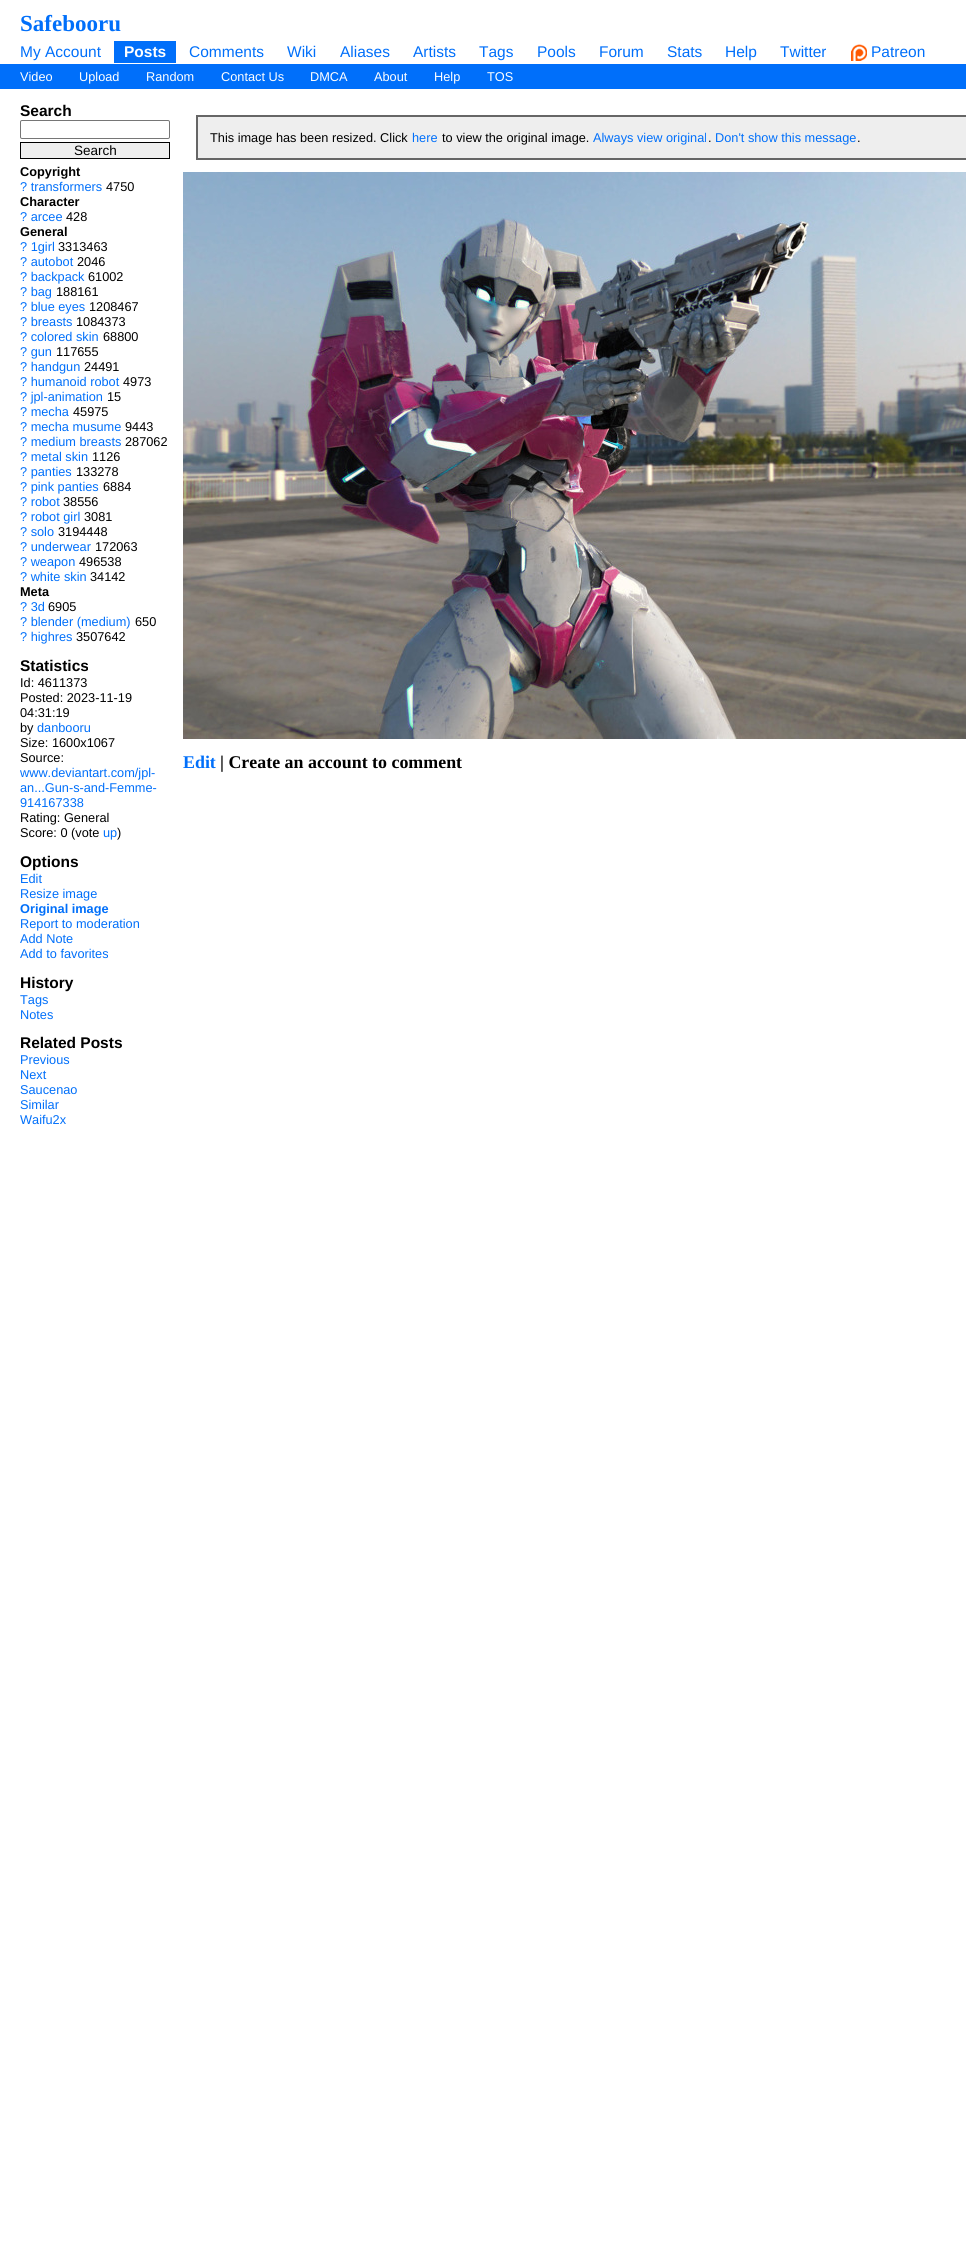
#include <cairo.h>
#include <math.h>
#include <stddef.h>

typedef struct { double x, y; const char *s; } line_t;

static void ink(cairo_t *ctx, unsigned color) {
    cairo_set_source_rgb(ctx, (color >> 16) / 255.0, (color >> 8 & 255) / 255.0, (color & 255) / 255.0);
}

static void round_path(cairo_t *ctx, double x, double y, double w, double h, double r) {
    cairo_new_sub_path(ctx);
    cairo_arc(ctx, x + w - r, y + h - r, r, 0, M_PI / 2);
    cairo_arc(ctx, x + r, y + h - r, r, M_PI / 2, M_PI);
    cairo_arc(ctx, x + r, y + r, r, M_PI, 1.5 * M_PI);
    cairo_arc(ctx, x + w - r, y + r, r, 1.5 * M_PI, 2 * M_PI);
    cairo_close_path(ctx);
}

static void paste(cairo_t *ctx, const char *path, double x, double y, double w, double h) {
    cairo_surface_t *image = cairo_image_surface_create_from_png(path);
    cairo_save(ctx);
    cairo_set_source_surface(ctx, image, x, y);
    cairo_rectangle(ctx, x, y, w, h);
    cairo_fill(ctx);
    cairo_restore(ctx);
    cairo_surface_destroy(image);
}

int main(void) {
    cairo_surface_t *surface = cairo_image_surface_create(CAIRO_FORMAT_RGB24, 966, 2242);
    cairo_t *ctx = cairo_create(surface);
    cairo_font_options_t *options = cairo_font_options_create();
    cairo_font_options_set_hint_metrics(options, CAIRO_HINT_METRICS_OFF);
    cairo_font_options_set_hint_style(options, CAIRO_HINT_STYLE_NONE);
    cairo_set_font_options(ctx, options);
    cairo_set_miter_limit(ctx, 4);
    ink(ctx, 0xFFFFFF);
    cairo_paint(ctx);
    cairo_select_font_face(ctx, "Liberation Serif", CAIRO_FONT_SLANT_NORMAL, CAIRO_FONT_WEIGHT_BOLD);
    cairo_set_font_size(ctx, 23);
    ink(ctx, 0x006FFA);
    cairo_move_to(ctx, 20, 31);
    cairo_show_text(ctx, "Safebooru");
    cairo_select_font_face(ctx, "Liberation Sans", CAIRO_FONT_SLANT_NORMAL, CAIRO_FONT_WEIGHT_NORMAL);
    cairo_set_font_size(ctx, 15.5);
    cairo_move_to(ctx, 20, 57);
    cairo_show_text(ctx, "My Account");
    cairo_rectangle(ctx, 114, 41, 62, 22);
    cairo_fill(ctx);
    cairo_select_font_face(ctx, "Liberation Sans", CAIRO_FONT_SLANT_NORMAL, CAIRO_FONT_WEIGHT_BOLD);
    ink(ctx, 0xFFFFFF);
    cairo_move_to(ctx, 124, 57);
    cairo_show_text(ctx, "Posts");
    cairo_select_font_face(ctx, "Liberation Sans", CAIRO_FONT_SLANT_NORMAL, CAIRO_FONT_WEIGHT_NORMAL);
    ink(ctx, 0x006FFA);
    {
        static const line_t items[] = {
            {189, 57, "Comments"},
            {287, 57, "Wiki"},
            {340, 57, "Aliases"},
            {413, 57, "Artists"},
            {479, 57, "Tags"},
            {537, 57, "Pools"},
            {599, 57, "Forum"},
            {667, 57, "Stats"},
            {725, 57, "Help"},
            {780, 57, "Twitter"},
        };
        for (size_t i = 0; i < sizeof items / sizeof *items; i++) {
            cairo_move_to(ctx, items[i].x, items[i].y);
            cairo_show_text(ctx, items[i].s);
        }
    }
    paste(ctx, "media/1.png", 851, 44, 16, 17);
    cairo_move_to(ctx, 871, 57);
    cairo_show_text(ctx, "Patreon");
    cairo_rectangle(ctx, 0, 64, 966, 25);
    cairo_fill(ctx);
    cairo_set_font_size(ctx, 12.75);
    ink(ctx, 0xFFFFFF);
    {
        static const line_t items[] = {
            {20, 81, "Video"},
            {79, 81, "Upload"},
            {146, 81, "Random"},
            {221, 81, "Contact Us"},
            {310, 81, "DMCA"},
            {374, 81, "About"},
            {434, 81, "Help"},
            {487, 81, "TOS"},
        };
        for (size_t i = 0; i < sizeof items / sizeof *items; i++) {
            cairo_move_to(ctx, items[i].x, items[i].y);
            cairo_show_text(ctx, items[i].s);
        }
    }
    cairo_select_font_face(ctx, "Liberation Sans", CAIRO_FONT_SLANT_NORMAL, CAIRO_FONT_WEIGHT_BOLD);
    cairo_set_font_size(ctx, 15.5);
    ink(ctx, 0x000000);
    cairo_move_to(ctx, 20, 116);
    cairo_show_text(ctx, "Search");
    round_path(ctx, 20.5, 120.5, 149, 18, 1.5);
    ink(ctx, 0x767676);
    cairo_set_line_width(ctx, 1);
    cairo_stroke(ctx);
    ink(ctx, 0xEFEFEF);
    cairo_rectangle(ctx, 20.5, 142.5, 149, 16);
    cairo_fill_preserve(ctx);
    ink(ctx, 0x000000);
    cairo_stroke(ctx);
    cairo_select_font_face(ctx, "Liberation Sans", CAIRO_FONT_SLANT_NORMAL, CAIRO_FONT_WEIGHT_NORMAL);
    cairo_set_font_size(ctx, 13.5);
    cairo_move_to(ctx, 74, 155);
    cairo_show_text(ctx, "Search");
    cairo_select_font_face(ctx, "Liberation Sans", CAIRO_FONT_SLANT_NORMAL, CAIRO_FONT_WEIGHT_BOLD);
    cairo_set_font_size(ctx, 12.75);
    cairo_move_to(ctx, 20, 176);
    cairo_show_text(ctx, "Copyright");
    cairo_select_font_face(ctx, "Liberation Sans", CAIRO_FONT_SLANT_NORMAL, CAIRO_FONT_WEIGHT_NORMAL);
    ink(ctx, 0x006FFA);
    cairo_move_to(ctx, 20, 191);
    cairo_show_text(ctx, "? transformers");
    ink(ctx, 0x000000);
    cairo_move_to(ctx, 106, 191);
    cairo_show_text(ctx, "4750");
    cairo_select_font_face(ctx, "Liberation Sans", CAIRO_FONT_SLANT_NORMAL, CAIRO_FONT_WEIGHT_BOLD);
    cairo_move_to(ctx, 20, 206);
    cairo_show_text(ctx, "Character");
    cairo_select_font_face(ctx, "Liberation Sans", CAIRO_FONT_SLANT_NORMAL, CAIRO_FONT_WEIGHT_NORMAL);
    ink(ctx, 0x006FFA);
    cairo_move_to(ctx, 20, 221);
    cairo_show_text(ctx, "? arcee");
    ink(ctx, 0x000000);
    cairo_move_to(ctx, 66, 221);
    cairo_show_text(ctx, "428");
    cairo_select_font_face(ctx, "Liberation Sans", CAIRO_FONT_SLANT_NORMAL, CAIRO_FONT_WEIGHT_BOLD);
    cairo_move_to(ctx, 20, 236);
    cairo_show_text(ctx, "General");
    cairo_select_font_face(ctx, "Liberation Sans", CAIRO_FONT_SLANT_NORMAL, CAIRO_FONT_WEIGHT_NORMAL);
    ink(ctx, 0x006FFA);
    cairo_move_to(ctx, 20, 251);
    cairo_show_text(ctx, "? 1girl");
    ink(ctx, 0x000000);
    cairo_move_to(ctx, 58, 251);
    cairo_show_text(ctx, "3313463");
    ink(ctx, 0x006FFA);
    cairo_move_to(ctx, 20, 266);
    cairo_show_text(ctx, "? autobot");
    ink(ctx, 0x000000);
    cairo_move_to(ctx, 77, 266);
    cairo_show_text(ctx, "2046");
    ink(ctx, 0x006FFA);
    cairo_move_to(ctx, 20, 281);
    cairo_show_text(ctx, "? backpack");
    ink(ctx, 0x000000);
    cairo_move_to(ctx, 88, 281);
    cairo_show_text(ctx, "61002");
    ink(ctx, 0x006FFA);
    cairo_move_to(ctx, 20, 296);
    cairo_show_text(ctx, "? bag");
    ink(ctx, 0x000000);
    cairo_move_to(ctx, 56, 296);
    cairo_show_text(ctx, "188161");
    ink(ctx, 0x006FFA);
    cairo_move_to(ctx, 20, 311);
    cairo_show_text(ctx, "? blue eyes");
    ink(ctx, 0x000000);
    cairo_move_to(ctx, 89, 311);
    cairo_show_text(ctx, "1208467");
    ink(ctx, 0x006FFA);
    cairo_move_to(ctx, 20, 326);
    cairo_show_text(ctx, "? breasts");
    ink(ctx, 0x000000);
    cairo_move_to(ctx, 76, 326);
    cairo_show_text(ctx, "1084373");
    ink(ctx, 0x006FFA);
    cairo_move_to(ctx, 20, 341);
    cairo_show_text(ctx, "? colored skin");
    ink(ctx, 0x000000);
    cairo_move_to(ctx, 103, 341);
    cairo_show_text(ctx, "68800");
    ink(ctx, 0x006FFA);
    cairo_move_to(ctx, 20, 356);
    cairo_show_text(ctx, "? gun");
    ink(ctx, 0x000000);
    cairo_move_to(ctx, 56, 356);
    cairo_show_text(ctx, "117655");
    ink(ctx, 0x006FFA);
    cairo_move_to(ctx, 20, 371);
    cairo_show_text(ctx, "? handgun");
    ink(ctx, 0x000000);
    cairo_move_to(ctx, 84, 371);
    cairo_show_text(ctx, "24491");
    ink(ctx, 0x006FFA);
    cairo_move_to(ctx, 20, 386);
    cairo_show_text(ctx, "? humanoid robot");
    ink(ctx, 0x000000);
    cairo_move_to(ctx, 123, 386);
    cairo_show_text(ctx, "4973");
    ink(ctx, 0x006FFA);
    cairo_move_to(ctx, 20, 401);
    cairo_show_text(ctx, "? jpl-animation");
    ink(ctx, 0x000000);
    cairo_move_to(ctx, 107, 401);
    cairo_show_text(ctx, "15");
    ink(ctx, 0x006FFA);
    cairo_move_to(ctx, 20, 416);
    cairo_show_text(ctx, "? mecha");
    ink(ctx, 0x000000);
    cairo_move_to(ctx, 73, 416);
    cairo_show_text(ctx, "45975");
    ink(ctx, 0x006FFA);
    cairo_move_to(ctx, 20, 431);
    cairo_show_text(ctx, "? mecha musume");
    ink(ctx, 0x000000);
    cairo_move_to(ctx, 125, 431);
    cairo_show_text(ctx, "9443");
    ink(ctx, 0x006FFA);
    cairo_move_to(ctx, 20, 446);
    cairo_show_text(ctx, "? medium breasts");
    ink(ctx, 0x000000);
    cairo_move_to(ctx, 125, 446);
    cairo_show_text(ctx, "287062");
    ink(ctx, 0x006FFA);
    cairo_move_to(ctx, 20, 461);
    cairo_show_text(ctx, "? metal skin");
    ink(ctx, 0x000000);
    cairo_move_to(ctx, 92, 461);
    cairo_show_text(ctx, "1126");
    ink(ctx, 0x006FFA);
    cairo_move_to(ctx, 20, 476);
    cairo_show_text(ctx, "? panties");
    ink(ctx, 0x000000);
    cairo_move_to(ctx, 76, 476);
    cairo_show_text(ctx, "133278");
    ink(ctx, 0x006FFA);
    cairo_move_to(ctx, 20, 491);
    cairo_show_text(ctx, "? pink panties");
    ink(ctx, 0x000000);
    cairo_move_to(ctx, 103, 491);
    cairo_show_text(ctx, "6884");
    ink(ctx, 0x006FFA);
    cairo_move_to(ctx, 20, 506);
    cairo_show_text(ctx, "? robot");
    ink(ctx, 0x000000);
    cairo_move_to(ctx, 63, 506);
    cairo_show_text(ctx, "38556");
    ink(ctx, 0x006FFA);
    cairo_move_to(ctx, 20, 521);
    cairo_show_text(ctx, "? robot girl");
    ink(ctx, 0x000000);
    cairo_move_to(ctx, 84, 521);
    cairo_show_text(ctx, "3081");
    ink(ctx, 0x006FFA);
    cairo_move_to(ctx, 20, 536);
    cairo_show_text(ctx, "? solo");
    ink(ctx, 0x000000);
    cairo_move_to(ctx, 58, 536);
    cairo_show_text(ctx, "3194448");
    ink(ctx, 0x006FFA);
    cairo_move_to(ctx, 20, 551);
    cairo_show_text(ctx, "? underwear");
    ink(ctx, 0x000000);
    cairo_move_to(ctx, 95, 551);
    cairo_show_text(ctx, "172063");
    ink(ctx, 0x006FFA);
    cairo_move_to(ctx, 20, 566);
    cairo_show_text(ctx, "? weapon");
    ink(ctx, 0x000000);
    cairo_move_to(ctx, 79, 566);
    cairo_show_text(ctx, "496538");
    ink(ctx, 0x006FFA);
    cairo_move_to(ctx, 20, 581);
    cairo_show_text(ctx, "? white skin");
    ink(ctx, 0x000000);
    cairo_move_to(ctx, 90, 581);
    cairo_show_text(ctx, "34142");
    cairo_select_font_face(ctx, "Liberation Sans", CAIRO_FONT_SLANT_NORMAL, CAIRO_FONT_WEIGHT_BOLD);
    cairo_move_to(ctx, 20, 596);
    cairo_show_text(ctx, "Meta");
    cairo_select_font_face(ctx, "Liberation Sans", CAIRO_FONT_SLANT_NORMAL, CAIRO_FONT_WEIGHT_NORMAL);
    ink(ctx, 0x006FFA);
    cairo_move_to(ctx, 20, 611);
    cairo_show_text(ctx, "? 3d");
    ink(ctx, 0x000000);
    cairo_move_to(ctx, 48, 611);
    cairo_show_text(ctx, "6905");
    ink(ctx, 0x006FFA);
    cairo_move_to(ctx, 20, 626);
    cairo_show_text(ctx, "? blender (medium)");
    ink(ctx, 0x000000);
    cairo_move_to(ctx, 135, 626);
    cairo_show_text(ctx, "650");
    ink(ctx, 0x006FFA);
    cairo_move_to(ctx, 20, 641);
    cairo_show_text(ctx, "? highres");
    ink(ctx, 0x000000);
    cairo_move_to(ctx, 76, 641);
    cairo_show_text(ctx, "3507642");
    cairo_select_font_face(ctx, "Liberation Sans", CAIRO_FONT_SLANT_NORMAL, CAIRO_FONT_WEIGHT_BOLD);
    cairo_set_font_size(ctx, 15.5);
    cairo_move_to(ctx, 20, 671);
    cairo_show_text(ctx, "Statistics");
    cairo_select_font_face(ctx, "Liberation Sans", CAIRO_FONT_SLANT_NORMAL, CAIRO_FONT_WEIGHT_NORMAL);
    cairo_set_font_size(ctx, 12.75);
    {
        static const line_t items[] = {
            {20, 687, "Id: 4611373"},
            {20, 702, "Posted: 2023-11-19"},
            {20, 717, "04:31:19"},
            {20, 732, "by"},
        };
        for (size_t i = 0; i < sizeof items / sizeof *items; i++) {
            cairo_move_to(ctx, items[i].x, items[i].y);
            cairo_show_text(ctx, items[i].s);
        }
    }
    ink(ctx, 0x006FFA);
    cairo_move_to(ctx, 37, 732);
    cairo_show_text(ctx, "danbooru");
    ink(ctx, 0x000000);
    cairo_move_to(ctx, 20, 747);
    cairo_show_text(ctx, "Size: 1600x1067");
    cairo_move_to(ctx, 20, 762);
    cairo_show_text(ctx, "Source:");
    ink(ctx, 0x006FFA);
    {
        static const line_t items[] = {
            {20, 777, "www.deviantart.com/jpl-"},
            {20, 792, "an...Gun-s-and-Femme-"},
            {20, 807, "914167338"},
        };
        for (size_t i = 0; i < sizeof items / sizeof *items; i++) {
            cairo_move_to(ctx, items[i].x, items[i].y);
            cairo_show_text(ctx, items[i].s);
        }
    }
    ink(ctx, 0x000000);
    cairo_move_to(ctx, 20, 822);
    cairo_show_text(ctx, "Rating: General");
    cairo_move_to(ctx, 20, 837);
    cairo_show_text(ctx, "Score: 0 (vote");
    ink(ctx, 0x006FFA);
    cairo_move_to(ctx, 103, 837);
    cairo_show_text(ctx, "up");
    ink(ctx, 0x000000);
    cairo_move_to(ctx, 117, 837);
    cairo_show_text(ctx, ")");
    cairo_select_font_face(ctx, "Liberation Sans", CAIRO_FONT_SLANT_NORMAL, CAIRO_FONT_WEIGHT_BOLD);
    cairo_set_font_size(ctx, 15.5);
    cairo_move_to(ctx, 20, 867);
    cairo_show_text(ctx, "Options");
    cairo_select_font_face(ctx, "Liberation Sans", CAIRO_FONT_SLANT_NORMAL, CAIRO_FONT_WEIGHT_NORMAL);
    cairo_set_font_size(ctx, 12.75);
    ink(ctx, 0x006FFA);
    cairo_move_to(ctx, 20, 883);
    cairo_show_text(ctx, "Edit");
    cairo_move_to(ctx, 20, 898);
    cairo_show_text(ctx, "Resize image");
    cairo_select_font_face(ctx, "Liberation Sans", CAIRO_FONT_SLANT_NORMAL, CAIRO_FONT_WEIGHT_BOLD);
    cairo_move_to(ctx, 20, 913);
    cairo_show_text(ctx, "Original image");
    cairo_select_font_face(ctx, "Liberation Sans", CAIRO_FONT_SLANT_NORMAL, CAIRO_FONT_WEIGHT_NORMAL);
    {
        static const line_t items[] = {
            {20, 928, "Report to moderation"},
            {20, 943, "Add Note"},
            {20, 958, "Add to favorites"},
        };
        for (size_t i = 0; i < sizeof items / sizeof *items; i++) {
            cairo_move_to(ctx, items[i].x, items[i].y);
            cairo_show_text(ctx, items[i].s);
        }
    }
    cairo_select_font_face(ctx, "Liberation Sans", CAIRO_FONT_SLANT_NORMAL, CAIRO_FONT_WEIGHT_BOLD);
    cairo_set_font_size(ctx, 15.5);
    ink(ctx, 0x000000);
    cairo_move_to(ctx, 20, 988);
    cairo_show_text(ctx, "History");
    cairo_select_font_face(ctx, "Liberation Sans", CAIRO_FONT_SLANT_NORMAL, CAIRO_FONT_WEIGHT_NORMAL);
    cairo_set_font_size(ctx, 12.75);
    ink(ctx, 0x006FFA);
    cairo_move_to(ctx, 20, 1004);
    cairo_show_text(ctx, "Tags");
    cairo_move_to(ctx, 20, 1019);
    cairo_show_text(ctx, "Notes");
    cairo_select_font_face(ctx, "Liberation Sans", CAIRO_FONT_SLANT_NORMAL, CAIRO_FONT_WEIGHT_BOLD);
    cairo_set_font_size(ctx, 15.5);
    ink(ctx, 0x000000);
    cairo_move_to(ctx, 20, 1048);
    cairo_show_text(ctx, "Related Posts");
    cairo_select_font_face(ctx, "Liberation Sans", CAIRO_FONT_SLANT_NORMAL, CAIRO_FONT_WEIGHT_NORMAL);
    cairo_set_font_size(ctx, 12.75);
    ink(ctx, 0x006FFA);
    {
        static const line_t items[] = {
            {20, 1064, "Previous"},
            {20, 1079, "Next"},
            {20, 1094, "Saucenao"},
            {20, 1109, "Similar"},
            {20, 1124, "Waifu2x"},
        };
        for (size_t i = 0; i < sizeof items / sizeof *items; i++) {
            cairo_move_to(ctx, items[i].x, items[i].y);
            cairo_show_text(ctx, items[i].s);
        }
    }
    ink(ctx, 0xEEEEEE);
    cairo_rectangle(ctx, 197, 116, 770, 43);
    cairo_fill_preserve(ctx);
    ink(ctx, 0x666666);
    cairo_set_line_width(ctx, 2);
    cairo_stroke(ctx);
    ink(ctx, 0x000000);
    cairo_move_to(ctx, 210, 142);
    cairo_show_text(ctx, "This image has been resized. Click");
    ink(ctx, 0x006FFA);
    cairo_move_to(ctx, 412, 142);
    cairo_show_text(ctx, "here");
    ink(ctx, 0x000000);
    cairo_move_to(ctx, 442, 142);
    cairo_show_text(ctx, "to view the original image.");
    ink(ctx, 0x006FFA);
    cairo_move_to(ctx, 593, 142);
    cairo_show_text(ctx, "Always view original");
    ink(ctx, 0x000000);
    cairo_move_to(ctx, 708, 142);
    cairo_show_text(ctx, ".");
    ink(ctx, 0x006FFA);
    cairo_move_to(ctx, 715, 142);
    cairo_show_text(ctx, "Don't show this message");
    ink(ctx, 0x000000);
    cairo_move_to(ctx, 857, 142);
    cairo_show_text(ctx, ".");
    paste(ctx, "media/2.png", 183, 172, 783, 567);
    cairo_select_font_face(ctx, "Liberation Serif", CAIRO_FONT_SLANT_NORMAL, CAIRO_FONT_WEIGHT_BOLD);
    cairo_set_font_size(ctx, 17.9);
    ink(ctx, 0x006FFA);
    cairo_move_to(ctx, 183, 768);
    cairo_show_text(ctx, "Edit");
    ink(ctx, 0x000000);
    cairo_move_to(ctx, 220, 768);
    cairo_show_text(ctx, "| Create an account to comment");
    cairo_surface_write_to_png(surface, "image.png");
    cairo_font_options_destroy(options);
    cairo_destroy(ctx);
    cairo_surface_destroy(surface);
    return 0;
}
